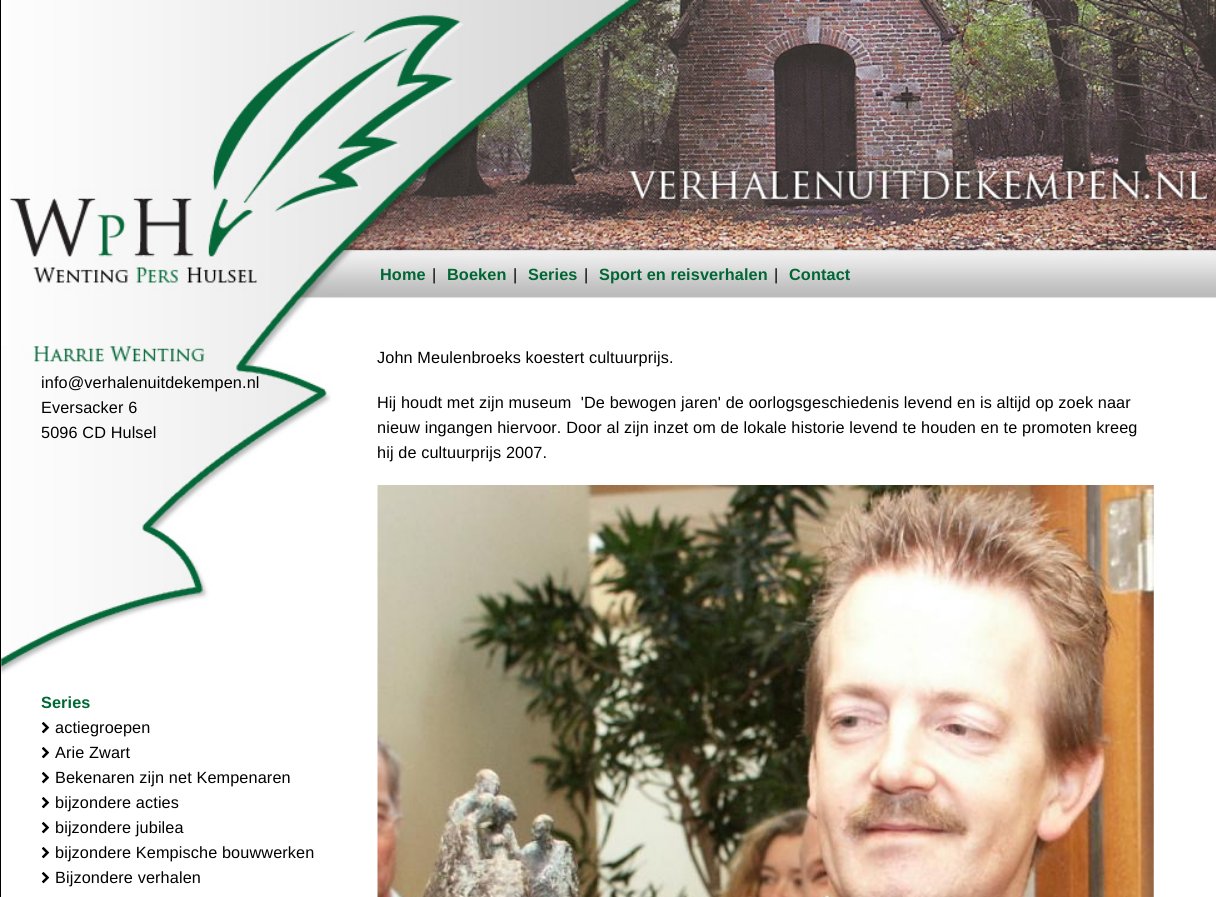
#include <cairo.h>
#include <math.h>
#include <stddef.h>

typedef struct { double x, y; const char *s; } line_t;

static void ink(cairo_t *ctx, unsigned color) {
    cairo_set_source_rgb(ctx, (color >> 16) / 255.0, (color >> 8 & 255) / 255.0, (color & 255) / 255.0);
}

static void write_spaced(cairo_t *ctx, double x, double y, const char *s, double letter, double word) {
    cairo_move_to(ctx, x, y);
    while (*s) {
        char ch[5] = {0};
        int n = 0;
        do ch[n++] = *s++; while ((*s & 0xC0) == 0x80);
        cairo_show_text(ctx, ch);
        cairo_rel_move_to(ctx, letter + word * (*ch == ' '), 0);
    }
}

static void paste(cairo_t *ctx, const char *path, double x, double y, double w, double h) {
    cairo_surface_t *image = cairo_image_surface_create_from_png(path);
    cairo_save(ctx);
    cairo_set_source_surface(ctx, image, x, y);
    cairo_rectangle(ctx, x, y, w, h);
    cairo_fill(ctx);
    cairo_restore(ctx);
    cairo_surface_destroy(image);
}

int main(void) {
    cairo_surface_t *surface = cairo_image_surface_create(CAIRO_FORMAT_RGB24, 1216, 897);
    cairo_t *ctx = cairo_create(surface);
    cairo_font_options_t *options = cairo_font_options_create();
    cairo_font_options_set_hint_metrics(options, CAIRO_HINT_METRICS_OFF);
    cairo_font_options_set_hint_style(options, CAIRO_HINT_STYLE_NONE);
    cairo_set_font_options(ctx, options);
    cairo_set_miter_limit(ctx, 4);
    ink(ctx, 0xFFFFFF);
    cairo_paint(ctx);
    ink(ctx, 0x000000);
    cairo_rectangle(ctx, 0, 0, 1, 897);
    cairo_fill(ctx);
    paste(ctx, "media/1.png", 8, 0, 1208, 345);
    cairo_select_font_face(ctx, "Liberation Sans", CAIRO_FONT_SLANT_NORMAL, CAIRO_FONT_WEIGHT_BOLD);
    cairo_set_font_size(ctx, 16.25);
    ink(ctx, 0x006633);
    write_spaced(ctx, 380, 280, "Home", 0.12, 0);
    cairo_select_font_face(ctx, "Liberation Sans", CAIRO_FONT_SLANT_NORMAL, CAIRO_FONT_WEIGHT_NORMAL);
    ink(ctx, 0x000000);
    write_spaced(ctx, 432, 280, "|", 0.12, 0);
    cairo_select_font_face(ctx, "Liberation Sans", CAIRO_FONT_SLANT_NORMAL, CAIRO_FONT_WEIGHT_BOLD);
    ink(ctx, 0x006633);
    write_spaced(ctx, 447, 280, "Boeken", 0.12, 0);
    cairo_select_font_face(ctx, "Liberation Sans", CAIRO_FONT_SLANT_NORMAL, CAIRO_FONT_WEIGHT_NORMAL);
    ink(ctx, 0x000000);
    write_spaced(ctx, 513, 280, "|", 0.12, 0);
    cairo_select_font_face(ctx, "Liberation Sans", CAIRO_FONT_SLANT_NORMAL, CAIRO_FONT_WEIGHT_BOLD);
    ink(ctx, 0x006633);
    write_spaced(ctx, 528, 280, "Series", 0.12, 0);
    cairo_select_font_face(ctx, "Liberation Sans", CAIRO_FONT_SLANT_NORMAL, CAIRO_FONT_WEIGHT_NORMAL);
    ink(ctx, 0x000000);
    write_spaced(ctx, 584, 280, "|", 0.12, 0);
    cairo_select_font_face(ctx, "Liberation Sans", CAIRO_FONT_SLANT_NORMAL, CAIRO_FONT_WEIGHT_BOLD);
    ink(ctx, 0x006633);
    write_spaced(ctx, 599, 280, "Sport en reisverhalen", 0.12, 0);
    cairo_select_font_face(ctx, "Liberation Sans", CAIRO_FONT_SLANT_NORMAL, CAIRO_FONT_WEIGHT_NORMAL);
    ink(ctx, 0x000000);
    write_spaced(ctx, 774, 280, "|", 0.12, 0);
    cairo_select_font_face(ctx, "Liberation Sans", CAIRO_FONT_SLANT_NORMAL, CAIRO_FONT_WEIGHT_BOLD);
    ink(ctx, 0x006633);
    write_spaced(ctx, 789, 280, "Contact", 0.12, 0);
    paste(ctx, "media/2.png", 1, 345, 330, 330);
    cairo_select_font_face(ctx, "Liberation Sans", CAIRO_FONT_SLANT_NORMAL, CAIRO_FONT_WEIGHT_NORMAL);
    ink(ctx, 0x000000);
    {
        static const line_t items[] = {
            {41, 388, "info@verhalenuitdekempen.nl"},
            {41, 413, "Eversacker 6"},
            {41, 438, "5096 CD Hulsel"},
        };
        for (size_t i = 0; i < sizeof items / sizeof *items; i++) {
            write_spaced(ctx, items[i].x, items[i].y, items[i].s, 0.12, 0);
        }
    }
    cairo_select_font_face(ctx, "Liberation Sans", CAIRO_FONT_SLANT_NORMAL, CAIRO_FONT_WEIGHT_BOLD);
    ink(ctx, 0x006633);
    write_spaced(ctx, 41, 708, "Series", 0.12, 0);
    paste(ctx, "media/3.png", 41, 722, 9, 12);
    cairo_select_font_face(ctx, "Liberation Sans", CAIRO_FONT_SLANT_NORMAL, CAIRO_FONT_WEIGHT_NORMAL);
    ink(ctx, 0x000000);
    write_spaced(ctx, 55, 733, "actiegroepen", 0.12, 0);
    paste(ctx, "media/3.png", 41, 747, 9, 12);
    write_spaced(ctx, 55, 758, "Arie Zwart", 0.12, 0);
    paste(ctx, "media/3.png", 41, 772, 9, 12);
    write_spaced(ctx, 55, 783, "Bekenaren zijn net Kempenaren", 0.12, 0);
    paste(ctx, "media/3.png", 41, 797, 9, 12);
    write_spaced(ctx, 55, 808, "bijzondere acties", 0.12, 0);
    paste(ctx, "media/3.png", 41, 822, 9, 12);
    write_spaced(ctx, 55, 833, "bijzondere jubilea", 0.12, 0);
    paste(ctx, "media/3.png", 41, 847, 9, 12);
    write_spaced(ctx, 55, 858, "bijzondere Kempische bouwwerken", 0.12, 0);
    paste(ctx, "media/3.png", 41, 872, 9, 12);
    {
        static const line_t items[] = {
            {55, 883, "Bijzondere verhalen"},
            {377, 363, "John Meulenbroeks koestert cultuurprijs."},
            {377, 408, "Hij houdt met zijn museum  'De bewogen jaren' de oorlogsgeschiedenis levend en is altijd op zoek naar"},
            {377, 433, "nieuw ingangen hiervoor. Door al zijn inzet om de lokale historie levend te houden en te promoten kreeg"},
            {377, 458, "hij de cultuurprijs 2007."},
        };
        for (size_t i = 0; i < sizeof items / sizeof *items; i++) {
            write_spaced(ctx, items[i].x, items[i].y, items[i].s, 0.12, 0);
        }
    }
    paste(ctx, "media/4.png", 377, 485, 777, 412);
    cairo_surface_write_to_png(surface, "image.png");
    cairo_font_options_destroy(options);
    cairo_destroy(ctx);
    cairo_surface_destroy(surface);
    return 0;
}
